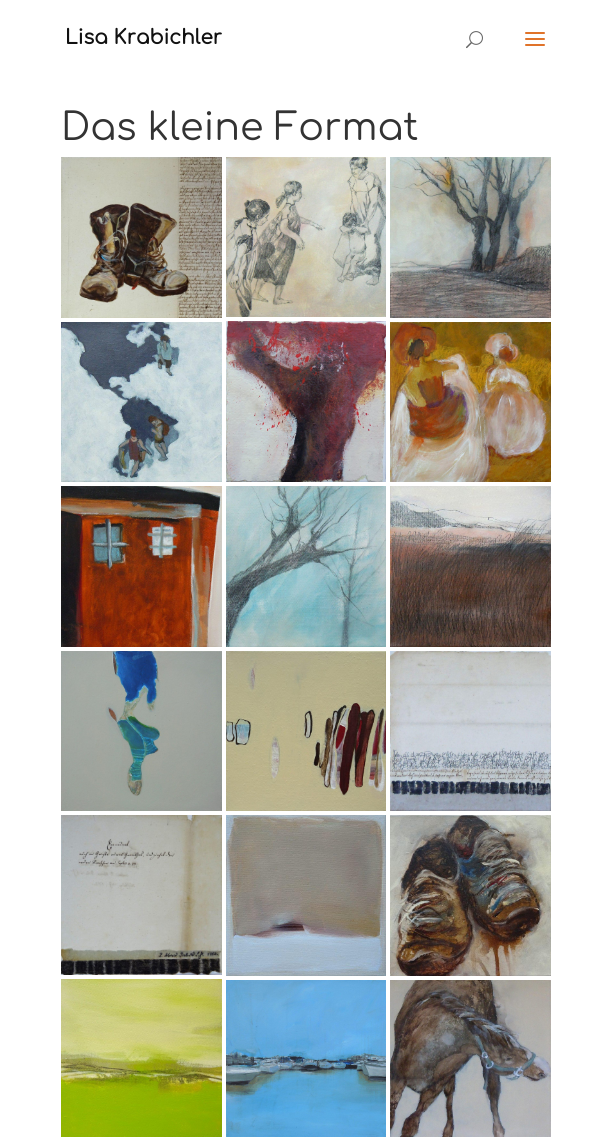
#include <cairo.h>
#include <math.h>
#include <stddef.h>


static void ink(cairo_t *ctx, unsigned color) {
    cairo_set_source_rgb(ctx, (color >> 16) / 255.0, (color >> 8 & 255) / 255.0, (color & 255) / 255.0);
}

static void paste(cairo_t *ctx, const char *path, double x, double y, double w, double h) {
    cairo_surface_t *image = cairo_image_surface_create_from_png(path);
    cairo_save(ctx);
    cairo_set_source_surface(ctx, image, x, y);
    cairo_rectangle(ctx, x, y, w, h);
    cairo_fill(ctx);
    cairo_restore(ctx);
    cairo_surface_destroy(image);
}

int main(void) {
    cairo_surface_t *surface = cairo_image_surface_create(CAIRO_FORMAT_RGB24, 612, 1137);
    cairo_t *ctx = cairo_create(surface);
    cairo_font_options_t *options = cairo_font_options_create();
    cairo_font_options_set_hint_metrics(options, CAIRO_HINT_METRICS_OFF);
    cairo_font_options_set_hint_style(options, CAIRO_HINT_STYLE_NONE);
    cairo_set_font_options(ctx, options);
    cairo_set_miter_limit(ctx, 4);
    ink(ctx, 0xFFFFFF);
    cairo_paint(ctx);
    cairo_select_font_face(ctx, "Comfortaa", CAIRO_FONT_SLANT_NORMAL, CAIRO_FONT_WEIGHT_BOLD);
    cairo_set_font_size(ctx, 20);
    ink(ctx, 0x111111);
    cairo_move_to(ctx, 65, 44);
    cairo_show_text(ctx, "Lisa Krabichler");
    paste(ctx, "media/1.png", 466, 31, 17, 18);
    paste(ctx, "media/2.png", 525, 32, 20, 14);
    cairo_select_font_face(ctx, "Comfortaa", CAIRO_FONT_SLANT_NORMAL, CAIRO_FONT_WEIGHT_NORMAL);
    cairo_set_font_size(ctx, 38);
    ink(ctx, 0x333333);
    cairo_move_to(ctx, 61, 140);
    cairo_show_text(ctx, "Das kleine Format");
    paste(ctx, "media/3.png", 61, 157, 161, 161);
    paste(ctx, "media/4.png", 226, 157, 160, 160);
    paste(ctx, "media/5.png", 390, 157, 161, 161);
    paste(ctx, "media/6.png", 61, 322, 161, 160);
    paste(ctx, "media/7.png", 226, 321, 160, 161);
    paste(ctx, "media/8.png", 390, 322, 161, 160);
    paste(ctx, "media/9.png", 61, 486, 161, 161);
    paste(ctx, "media/10.png", 226, 486, 160, 161);
    paste(ctx, "media/11.png", 390, 486, 161, 161);
    paste(ctx, "media/12.png", 61, 651, 161, 160);
    paste(ctx, "media/13.png", 226, 651, 160, 160);
    paste(ctx, "media/14.png", 390, 651, 161, 160);
    paste(ctx, "media/15.png", 61, 815, 161, 160);
    paste(ctx, "media/16.png", 226, 815, 160, 161);
    paste(ctx, "media/17.png", 390, 815, 161, 161);
    paste(ctx, "media/18.png", 61, 979, 161, 158);
    paste(ctx, "media/19.png", 226, 980, 160, 157);
    paste(ctx, "media/20.png", 390, 980, 161, 157);
    cairo_surface_write_to_png(surface, "image.png");
    cairo_font_options_destroy(options);
    cairo_destroy(ctx);
    cairo_surface_destroy(surface);
    return 0;
}
